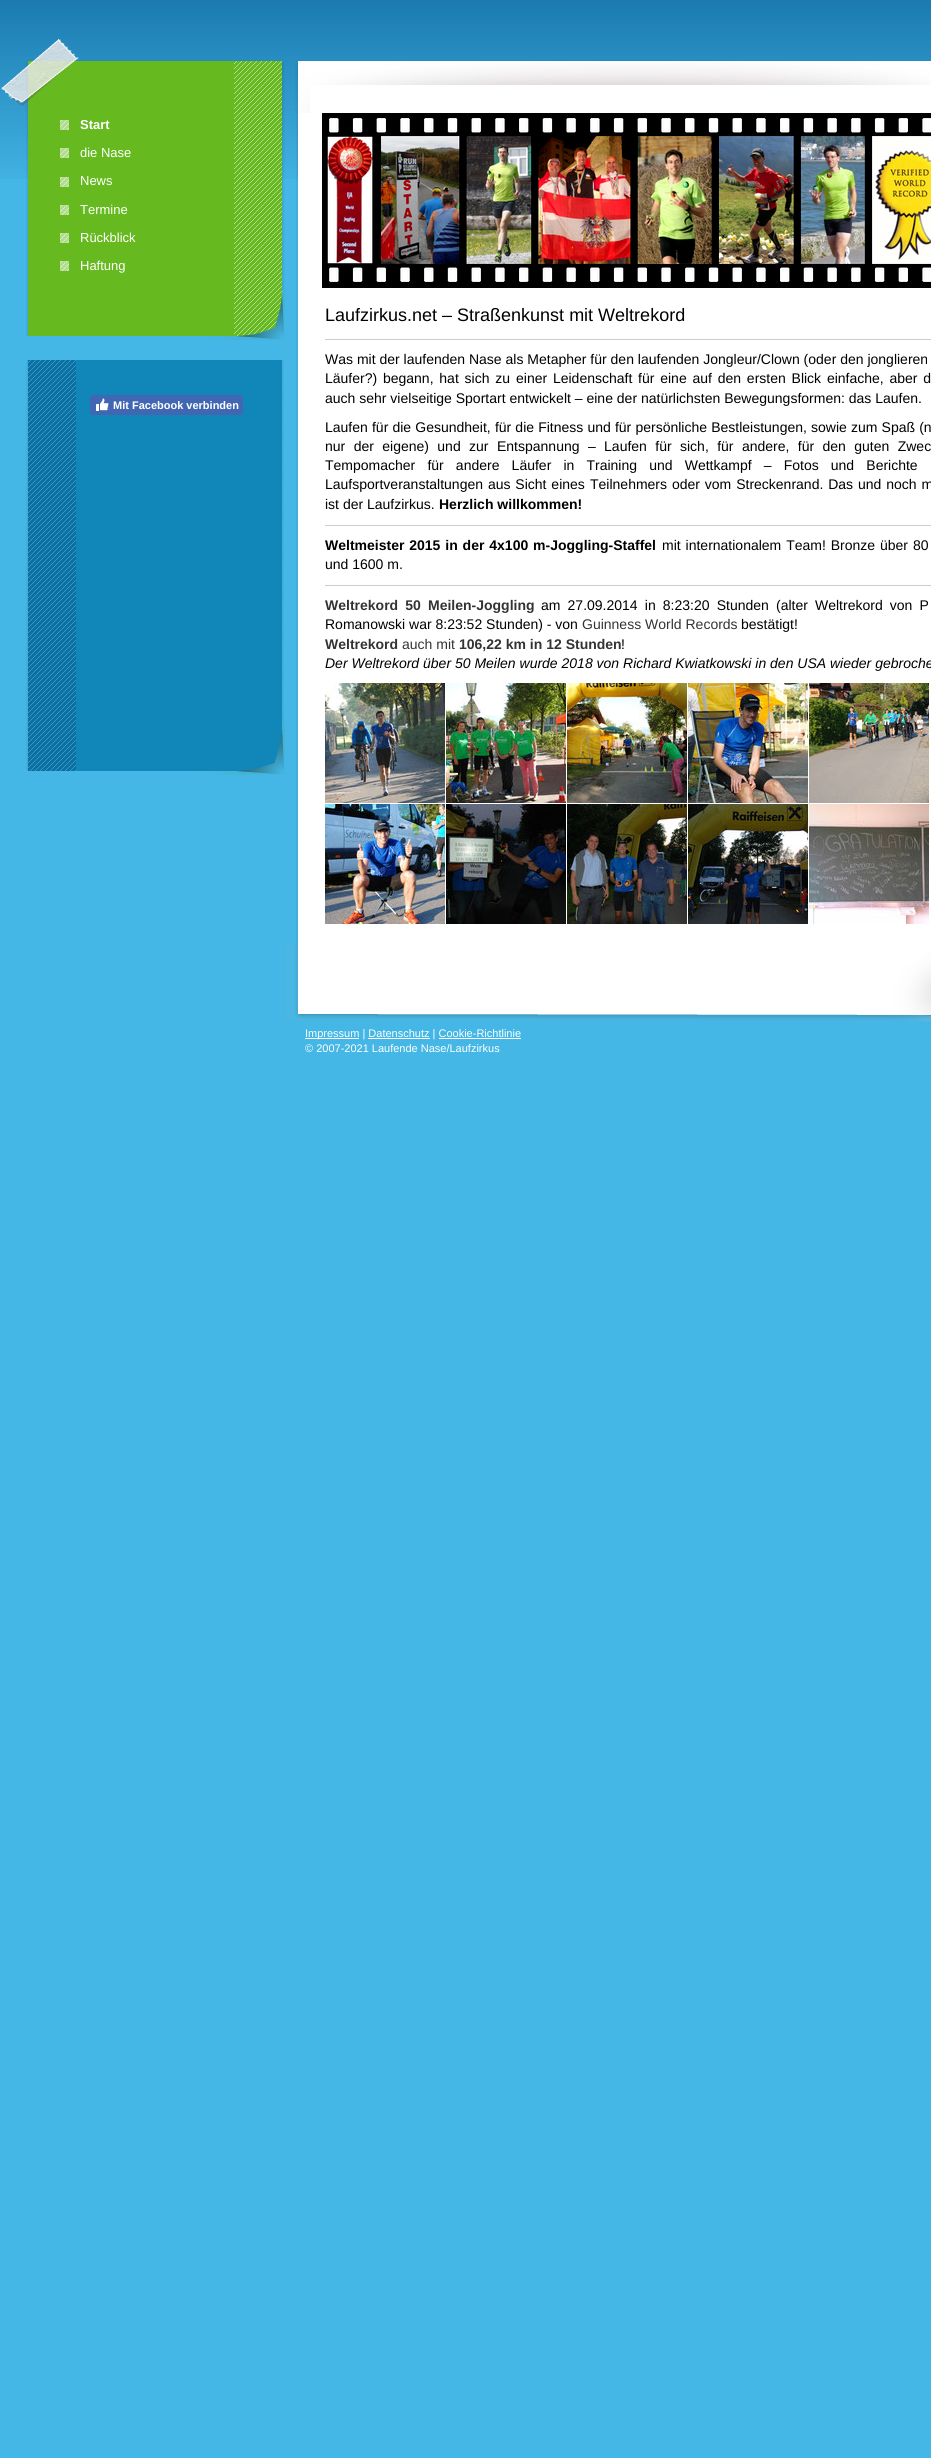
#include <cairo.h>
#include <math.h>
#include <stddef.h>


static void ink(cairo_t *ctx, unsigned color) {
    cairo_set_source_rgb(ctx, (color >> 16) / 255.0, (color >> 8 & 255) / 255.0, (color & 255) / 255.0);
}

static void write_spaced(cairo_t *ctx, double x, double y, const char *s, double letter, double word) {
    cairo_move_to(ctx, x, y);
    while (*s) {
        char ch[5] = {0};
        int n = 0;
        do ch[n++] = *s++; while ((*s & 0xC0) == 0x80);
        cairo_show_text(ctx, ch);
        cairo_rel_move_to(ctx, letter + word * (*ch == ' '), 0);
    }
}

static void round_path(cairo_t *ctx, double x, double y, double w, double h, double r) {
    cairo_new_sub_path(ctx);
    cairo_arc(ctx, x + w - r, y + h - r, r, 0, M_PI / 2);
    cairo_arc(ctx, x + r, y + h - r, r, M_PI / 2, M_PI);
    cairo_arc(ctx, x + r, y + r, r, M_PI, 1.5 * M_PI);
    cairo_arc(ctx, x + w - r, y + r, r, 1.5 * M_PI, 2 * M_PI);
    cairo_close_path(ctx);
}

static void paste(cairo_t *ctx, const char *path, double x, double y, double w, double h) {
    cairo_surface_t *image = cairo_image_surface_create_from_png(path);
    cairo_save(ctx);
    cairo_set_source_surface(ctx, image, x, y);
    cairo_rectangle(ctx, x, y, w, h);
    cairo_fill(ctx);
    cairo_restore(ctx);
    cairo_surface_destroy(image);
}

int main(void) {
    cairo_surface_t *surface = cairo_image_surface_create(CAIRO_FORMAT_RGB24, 931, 2458);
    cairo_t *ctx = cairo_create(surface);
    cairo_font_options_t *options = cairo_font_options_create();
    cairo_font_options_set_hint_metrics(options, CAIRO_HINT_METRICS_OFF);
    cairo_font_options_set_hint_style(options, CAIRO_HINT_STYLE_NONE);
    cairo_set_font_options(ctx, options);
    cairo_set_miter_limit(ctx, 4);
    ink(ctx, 0x44B7E6);
    cairo_paint(ctx);
    paste(ctx, "media/1.png", 0, 0, 931, 179);
    paste(ctx, "media/2.png", 1, 39, 284, 72);
    paste(ctx, "media/3.png", 26, 111, 259, 225);
    paste(ctx, "media/4.png", 60, 120, 9, 10);
    cairo_select_font_face(ctx, "Liberation Sans", CAIRO_FONT_SLANT_NORMAL, CAIRO_FONT_WEIGHT_BOLD);
    cairo_set_font_size(ctx, 13);
    ink(ctx, 0xFFFFFF);
    cairo_move_to(ctx, 80, 129);
    cairo_show_text(ctx, "Start");
    paste(ctx, "media/4.png", 60, 148, 9, 10);
    cairo_select_font_face(ctx, "Liberation Sans", CAIRO_FONT_SLANT_NORMAL, CAIRO_FONT_WEIGHT_NORMAL);
    cairo_move_to(ctx, 80, 157);
    cairo_show_text(ctx, "die Nase");
    paste(ctx, "media/4.png", 60, 177, 9, 10);
    cairo_move_to(ctx, 80, 185);
    cairo_show_text(ctx, "News");
    paste(ctx, "media/4.png", 60, 205, 9, 10);
    cairo_move_to(ctx, 80, 214);
    cairo_show_text(ctx, "Termine");
    paste(ctx, "media/4.png", 60, 233, 9, 10);
    cairo_move_to(ctx, 80, 242);
    cairo_show_text(ctx, "Rückblick");
    paste(ctx, "media/4.png", 60, 261, 9, 10);
    cairo_move_to(ctx, 80, 270);
    cairo_show_text(ctx, "Haftung");
    paste(ctx, "media/5.png", 25, 290, 260, 50);
    paste(ctx, "media/6.png", 26, 360, 258, 411);
    ink(ctx, 0x4267B2);
    round_path(ctx, 90.5, 395.5, 152, 19, 2.5);
    cairo_fill_preserve(ctx);
    cairo_set_line_width(ctx, 1);
    cairo_stroke(ctx);
    paste(ctx, "media/7.png", 96, 398, 13, 13);
    cairo_select_font_face(ctx, "Liberation Sans", CAIRO_FONT_SLANT_NORMAL, CAIRO_FONT_WEIGHT_BOLD);
    cairo_set_font_size(ctx, 11);
    ink(ctx, 0xFFFFFF);
    cairo_move_to(ctx, 113, 409);
    cairo_show_text(ctx, "Mit Facebook verbinden");
    paste(ctx, "media/8.png", 25, 725, 260, 50);
    paste(ctx, "media/9.png", 295, 60, 636, 53);
    paste(ctx, "media/10.png", 296, 113, 635, 832);
    paste(ctx, "media/11.png", 322, 113, 609, 175);
    cairo_select_font_face(ctx, "Liberation Sans", CAIRO_FONT_SLANT_NORMAL, CAIRO_FONT_WEIGHT_NORMAL);
    cairo_set_font_size(ctx, 18);
    ink(ctx, 0x000000);
    cairo_move_to(ctx, 325, 321);
    cairo_show_text(ctx, "Laufzirkus.net – Straßenkunst mit Weltrekord");
    ink(ctx, 0xCCCCCC);
    cairo_rectangle(ctx, 325, 339, 606, 1);
    cairo_fill(ctx);
    cairo_set_font_size(ctx, 14);
    ink(ctx, 0x000000);
    cairo_move_to(ctx, 325, 364);
    cairo_show_text(ctx, "Was mit der laufenden Nase als Metapher für den laufenden Jongleur/Clown (oder den jonglieren");
    write_spaced(ctx, 325, 383, "Läufer?) begann, hat sich zu", 0, 1.9);
    write_spaced(ctx, 516, 383, "einer Leidenschaft für eine auf den ersten Blick einfache, aber d", 0, 1.9);
    cairo_move_to(ctx, 325, 403);
    cairo_show_text(ctx, "auch sehr vielseitige Sportart entwickelt – eine der natürlichsten Bewegungsformen: das Laufen.");
    write_spaced(ctx, 325, 432, "Laufen für die Gesundheit, für die Fitness und für persönliche Bestleistungen, sowie zum Spaß (n", 0, 0.25);
    write_spaced(ctx, 325, 451, "nur der eigene) und zur", 0, 4.5);
    write_spaced(ctx, 497, 451, "Entspannung – Laufen für sich, für andere, für den guten Zwec", 0, 4.5);
    write_spaced(ctx, 325, 470, "Tempomacher für andere Läufer in Training und Wettkampf – Fotos und Berichte", 0, 8.25);
    write_spaced(ctx, 325, 489, "Laufsportveranstaltungen aus Sicht eines", 0, 1);
    write_spaced(ctx, 590, 489, "Teilnehmers oder vom Streckenrand. Das und noch m", 0, 1);
    cairo_move_to(ctx, 325, 509);
    cairo_show_text(ctx, "ist der Laufzirkus.");
    cairo_select_font_face(ctx, "Liberation Sans", CAIRO_FONT_SLANT_NORMAL, CAIRO_FONT_WEIGHT_BOLD);
    cairo_move_to(ctx, 439, 509);
    cairo_show_text(ctx, "Herzlich willkommen!");
    ink(ctx, 0xCCCCCC);
    cairo_rectangle(ctx, 325, 525, 606, 1);
    cairo_fill(ctx);
    ink(ctx, 0x000000);
    write_spaced(ctx, 325, 550, "Weltmeister 2015 in der 4x100 m-Joggling-Staffel", 0, 1);
    cairo_select_font_face(ctx, "Liberation Sans", CAIRO_FONT_SLANT_NORMAL, CAIRO_FONT_WEIGHT_NORMAL);
    write_spaced(ctx, 662, 550, "mit internationalem Team! Bronze über 80", 0, 1);
    cairo_move_to(ctx, 325, 569);
    cairo_show_text(ctx, "und 1600 m.");
    ink(ctx, 0xCCCCCC);
    cairo_rectangle(ctx, 325, 585, 606, 1);
    cairo_fill(ctx);
    cairo_select_font_face(ctx, "Liberation Sans", CAIRO_FONT_SLANT_NORMAL, CAIRO_FONT_WEIGHT_BOLD);
    ink(ctx, 0x333333);
    write_spaced(ctx, 325, 610, "Weltrekord 50 Meilen-Joggling", 0, 3.25);
    cairo_select_font_face(ctx, "Liberation Sans", CAIRO_FONT_SLANT_NORMAL, CAIRO_FONT_WEIGHT_NORMAL);
    ink(ctx, 0x000000);
    write_spaced(ctx, 541, 610, "am 27.09.2014 in 8:23:20 Stunden (alter Weltrekord von P", 0, 3.25);
    cairo_move_to(ctx, 325, 629);
    cairo_show_text(ctx, "Romanowski war 8:23:52 Stunden) - von");
    ink(ctx, 0x333333);
    cairo_move_to(ctx, 582, 629);
    cairo_show_text(ctx, "Guinness World Records");
    ink(ctx, 0x000000);
    cairo_move_to(ctx, 741, 629);
    cairo_show_text(ctx, "bestätigt!");
    cairo_select_font_face(ctx, "Liberation Sans", CAIRO_FONT_SLANT_NORMAL, CAIRO_FONT_WEIGHT_BOLD);
    ink(ctx, 0x333333);
    cairo_move_to(ctx, 325, 649);
    cairo_show_text(ctx, "Weltrekord");
    cairo_select_font_face(ctx, "Liberation Sans", CAIRO_FONT_SLANT_NORMAL, CAIRO_FONT_WEIGHT_NORMAL);
    cairo_move_to(ctx, 402, 649);
    cairo_show_text(ctx, "auch mit");
    cairo_select_font_face(ctx, "Liberation Sans", CAIRO_FONT_SLANT_NORMAL, CAIRO_FONT_WEIGHT_BOLD);
    cairo_move_to(ctx, 459, 649);
    cairo_show_text(ctx, "106,22 km in 12 Stunden");
    cairo_select_font_face(ctx, "Liberation Sans", CAIRO_FONT_SLANT_NORMAL, CAIRO_FONT_WEIGHT_NORMAL);
    ink(ctx, 0x000000);
    cairo_move_to(ctx, 621, 649);
    cairo_show_text(ctx, "!");
    cairo_select_font_face(ctx, "Liberation Sans", CAIRO_FONT_SLANT_ITALIC, CAIRO_FONT_WEIGHT_NORMAL);
    cairo_move_to(ctx, 325, 668);
    cairo_show_text(ctx, "Der Weltrekord über 50 Meilen wurde 2018 von Richard Kwiatkowski in den USA wieder gebroche");
    paste(ctx, "media/12.png", 325, 683, 120, 120);
    paste(ctx, "media/13.png", 446, 683, 120, 120);
    paste(ctx, "media/14.png", 567, 683, 120, 120);
    paste(ctx, "media/15.png", 688, 683, 120, 120);
    paste(ctx, "media/16.png", 809, 683, 120, 120);
    paste(ctx, "media/17.png", 325, 804, 120, 120);
    paste(ctx, "media/18.png", 446, 804, 120, 120);
    paste(ctx, "media/19.png", 567, 804, 120, 120);
    paste(ctx, "media/20.png", 688, 804, 120, 120);
    paste(ctx, "media/21.png", 809, 804, 120, 120);
    paste(ctx, "media/22.png", 285, 945, 646, 76);
    ink(ctx, 0xFFFFFF);
    cairo_rectangle(ctx, 305, 1038, 54, 1);
    cairo_fill(ctx);
    cairo_select_font_face(ctx, "Liberation Sans", CAIRO_FONT_SLANT_NORMAL, CAIRO_FONT_WEIGHT_NORMAL);
    cairo_set_font_size(ctx, 11);
    cairo_move_to(ctx, 305, 1037);
    cairo_show_text(ctx, "Impressum | Datenschutz | Cookie-Richtlinie");
    cairo_rectangle(ctx, 368, 1038, 62, 1);
    cairo_fill(ctx);
    cairo_rectangle(ctx, 439, 1038, 82, 1);
    cairo_fill(ctx);
    cairo_move_to(ctx, 305, 1052);
    cairo_show_text(ctx, "© 2007-2021 Laufende Nase/Laufzirkus");
    cairo_surface_write_to_png(surface, "image.png");
    cairo_font_options_destroy(options);
    cairo_destroy(ctx);
    cairo_surface_destroy(surface);
    return 0;
}
